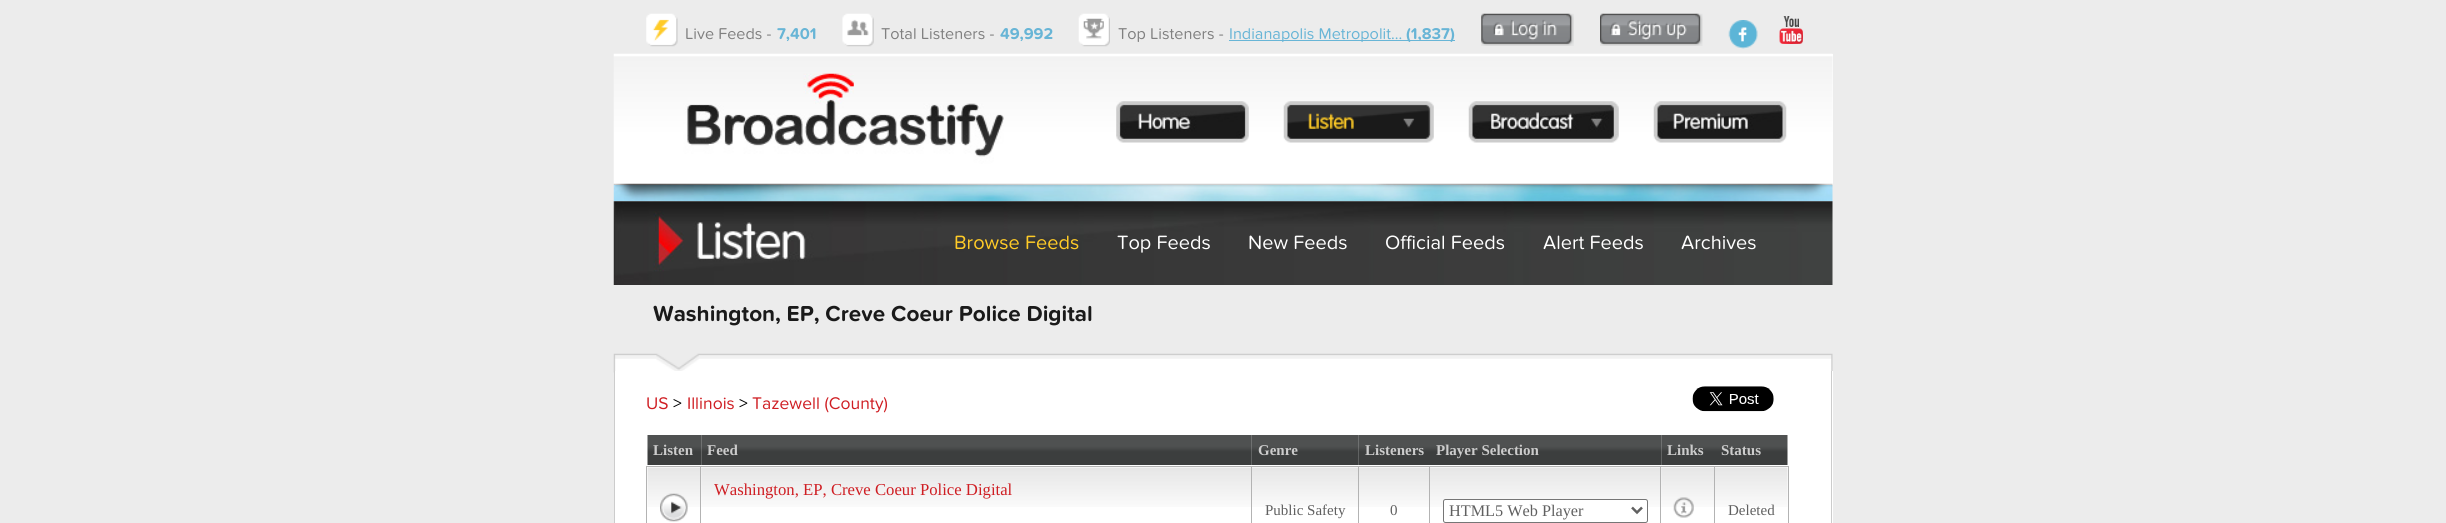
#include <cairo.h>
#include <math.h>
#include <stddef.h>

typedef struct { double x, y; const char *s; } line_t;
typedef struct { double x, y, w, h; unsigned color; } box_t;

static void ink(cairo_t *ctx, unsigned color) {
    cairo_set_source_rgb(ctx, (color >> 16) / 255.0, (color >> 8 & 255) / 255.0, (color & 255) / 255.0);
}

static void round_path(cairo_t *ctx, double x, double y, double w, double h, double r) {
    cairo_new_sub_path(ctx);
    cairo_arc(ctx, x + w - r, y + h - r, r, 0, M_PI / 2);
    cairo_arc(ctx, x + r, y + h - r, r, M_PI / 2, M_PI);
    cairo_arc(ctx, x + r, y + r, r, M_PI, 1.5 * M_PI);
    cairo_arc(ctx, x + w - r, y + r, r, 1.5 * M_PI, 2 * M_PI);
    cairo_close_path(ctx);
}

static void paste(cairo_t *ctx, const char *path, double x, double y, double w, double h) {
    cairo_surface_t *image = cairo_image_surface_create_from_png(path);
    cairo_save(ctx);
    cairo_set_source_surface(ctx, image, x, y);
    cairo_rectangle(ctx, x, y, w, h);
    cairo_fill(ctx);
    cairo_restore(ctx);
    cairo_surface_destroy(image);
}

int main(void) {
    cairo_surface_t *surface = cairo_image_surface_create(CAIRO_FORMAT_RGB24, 2446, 523);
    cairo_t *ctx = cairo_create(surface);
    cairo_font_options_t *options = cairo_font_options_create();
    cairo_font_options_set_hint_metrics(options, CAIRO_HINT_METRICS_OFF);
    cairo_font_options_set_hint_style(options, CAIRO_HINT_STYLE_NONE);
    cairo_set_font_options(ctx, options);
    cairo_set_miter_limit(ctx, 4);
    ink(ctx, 0xECECEC);
    cairo_paint(ctx);
    paste(ctx, "media/1.png", 646, 13, 32, 34);
    cairo_select_font_face(ctx, "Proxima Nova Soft", CAIRO_FONT_SLANT_NORMAL, CAIRO_FONT_WEIGHT_NORMAL);
    cairo_set_font_size(ctx, 16.25);
    ink(ctx, 0x808080);
    cairo_move_to(ctx, 685, 39);
    cairo_show_text(ctx, "Live Feeds -");
    cairo_select_font_face(ctx, "Proxima Nova Soft", CAIRO_FONT_SLANT_NORMAL, CAIRO_FONT_WEIGHT_BOLD);
    ink(ctx, 0x68B5D6);
    cairo_move_to(ctx, 777, 39);
    cairo_show_text(ctx, "7,401");
    paste(ctx, "media/2.png", 842, 13, 32, 34);
    cairo_select_font_face(ctx, "Proxima Nova Soft", CAIRO_FONT_SLANT_NORMAL, CAIRO_FONT_WEIGHT_NORMAL);
    ink(ctx, 0x808080);
    cairo_move_to(ctx, 881, 39);
    cairo_show_text(ctx, "Total Listeners -");
    cairo_select_font_face(ctx, "Proxima Nova Soft", CAIRO_FONT_SLANT_NORMAL, CAIRO_FONT_WEIGHT_BOLD);
    ink(ctx, 0x68B5D6);
    cairo_move_to(ctx, 1000, 39);
    cairo_show_text(ctx, "49,992");
    paste(ctx, "media/3.png", 1078, 13, 32, 34);
    cairo_select_font_face(ctx, "Proxima Nova Soft", CAIRO_FONT_SLANT_NORMAL, CAIRO_FONT_WEIGHT_NORMAL);
    ink(ctx, 0x808080);
    cairo_move_to(ctx, 1118, 39);
    cairo_show_text(ctx, "Top Listeners -");
    ink(ctx, 0x68B5D6);
    cairo_rectangle(ctx, 1229, 40, 226, 1);
    cairo_fill(ctx);
    cairo_move_to(ctx, 1229, 39);
    cairo_show_text(ctx, "Indianapolis Metropolit...");
    cairo_select_font_face(ctx, "Proxima Nova Soft", CAIRO_FONT_SLANT_NORMAL, CAIRO_FONT_WEIGHT_BOLD);
    cairo_move_to(ctx, 1406, 39);
    cairo_show_text(ctx, "(1,837)");
    paste(ctx, "media/4.png", 1481, 13, 93, 33);
    paste(ctx, "media/5.png", 1600, 13, 103, 33);
    paste(ctx, "media/6.png", 1728, 20, 30, 29);
    paste(ctx, "media/7.png", 1779, 16, 24, 28);
    ink(ctx, 0xFFFFFF);
    cairo_rectangle(ctx, 1832, 54, 1, 131);
    cairo_fill(ctx);
    paste(ctx, "media/8.png", 613, 53, 1220, 132);
    paste(ctx, "media/9.png", 1116, 101, 133, 42);
    paste(ctx, "media/10.png", 1283, 101, 151, 42);
    paste(ctx, "media/11.png", 1468, 101, 151, 42);
    paste(ctx, "media/12.png", 1653, 101, 134, 42);
    paste(ctx, "media/13.png", 613, 185, 1220, 17);
    paste(ctx, "media/14.png", 613, 201, 1220, 84);
    cairo_select_font_face(ctx, "Proxima Nova Soft", CAIRO_FONT_SLANT_NORMAL, CAIRO_FONT_WEIGHT_NORMAL);
    cairo_set_font_size(ctx, 20);
    ink(ctx, 0xFFCB27);
    cairo_move_to(ctx, 954, 249);
    cairo_show_text(ctx, "Browse Feeds");
    ink(ctx, 0xFFFFFF);
    {
        static const line_t items[] = {
            {1117, 249, "Top Feeds"},
            {1248, 249, "New Feeds"},
            {1385, 249, "Official Feeds"},
            {1543, 249, "Alert Feeds"},
            {1681, 249, "Archives"},
        };
        for (size_t i = 0; i < sizeof items / sizeof *items; i++) {
            cairo_move_to(ctx, items[i].x, items[i].y);
            cairo_show_text(ctx, items[i].s);
        }
    }
    paste(ctx, "media/15.png", 613, 353, 1220, 20);
    cairo_select_font_face(ctx, "Proxima Nova Soft", CAIRO_FONT_SLANT_NORMAL, CAIRO_FONT_WEIGHT_BOLD);
    cairo_set_font_size(ctx, 22.5);
    ink(ctx, 0x1A1A1A);
    cairo_move_to(ctx, 653, 321);
    cairo_show_text(ctx, "Washington, EP, Creve Coeur Police Digital");
    {
        static const box_t items[] = {
            {615, 371, 1218, 152, 0xFFFFFF},
            {1831, 371, 1, 152, 0xCCCCCC},
            {614, 371, 1, 152, 0xCCCCCC},
        };
        for (size_t i = 0; i < sizeof items / sizeof *items; i++) {
            ink(ctx, items[i].color);
            cairo_rectangle(ctx, items[i].x, items[i].y, items[i].w, items[i].h);
            cairo_fill(ctx);
        }
    }
    cairo_select_font_face(ctx, "Proxima Nova Soft", CAIRO_FONT_SLANT_NORMAL, CAIRO_FONT_WEIGHT_NORMAL);
    cairo_set_font_size(ctx, 17.5);
    ink(ctx, 0xCF1E23);
    cairo_move_to(ctx, 646, 409);
    cairo_show_text(ctx, "US");
    ink(ctx, 0x000000);
    cairo_move_to(ctx, 673, 409);
    cairo_show_text(ctx, ">");
    ink(ctx, 0xCF1E23);
    cairo_move_to(ctx, 687, 409);
    cairo_show_text(ctx, "Illinois");
    ink(ctx, 0x000000);
    cairo_move_to(ctx, 739, 409);
    cairo_show_text(ctx, ">");
    ink(ctx, 0xCF1E23);
    cairo_move_to(ctx, 752, 409);
    cairo_show_text(ctx, "Tazewell (County)");
    paste(ctx, "media/16.png", 1692, 386, 82, 26);
    paste(ctx, "media/17.png", 647, 435, 55, 30);
    cairo_select_font_face(ctx, "Liberation Serif", CAIRO_FONT_SLANT_NORMAL, CAIRO_FONT_WEIGHT_BOLD);
    cairo_set_font_size(ctx, 15);
    ink(ctx, 0xCCCCCC);
    cairo_move_to(ctx, 653, 455);
    cairo_show_text(ctx, "Listen");
    paste(ctx, "media/18.png", 701, 435, 551, 30);
    cairo_move_to(ctx, 707, 455);
    cairo_show_text(ctx, "Feed");
    paste(ctx, "media/19.png", 1251, 435, 108, 30);
    cairo_move_to(ctx, 1258, 455);
    cairo_show_text(ctx, "Genre");
    paste(ctx, "media/20.png", 1358, 435, 72, 30);
    cairo_move_to(ctx, 1365, 455);
    cairo_show_text(ctx, "Listeners");
    paste(ctx, "media/21.png", 1430, 435, 232, 30);
    cairo_move_to(ctx, 1436, 455);
    cairo_show_text(ctx, "Player Selection");
    paste(ctx, "media/22.png", 1661, 435, 54, 30);
    cairo_move_to(ctx, 1667, 455);
    cairo_show_text(ctx, "Links");
    paste(ctx, "media/23.png", 1715, 435, 73, 30);
    cairo_move_to(ctx, 1721, 455);
    cairo_show_text(ctx, "Status");
    paste(ctx, "media/24.png", 647, 467, 55, 40);
    {
        static const box_t items[] = {
            {1714, 466, 75, 1, 0xB3B3B3},
            {1714, 466, 1, 57, 0xB3B3B3},
            {1660, 466, 55, 1, 0xB3B3B3},
        };
        for (size_t i = 0; i < sizeof items / sizeof *items; i++) {
            ink(ctx, items[i].color);
            cairo_rectangle(ctx, items[i].x, items[i].y, items[i].w, items[i].h);
            cairo_fill(ctx);
        }
    }
    paste(ctx, "media/31.png", 1430, 467, 232, 40);
    {
        static const box_t items[] = {
            {1660, 466, 1, 57, 0xB3B3B3},
            {1429, 466, 232, 1, 0xB3B3B3},
            {1429, 466, 1, 57, 0xB3B3B3},
            {1358, 466, 72, 1, 0xB3B3B3},
            {1358, 466, 1, 57, 0xB3B3B3},
            {1251, 466, 108, 1, 0xB3B3B3},
            {1251, 466, 1, 57, 0xB3B3B3},
            {700, 466, 553, 1, 0xB3B3B3},
            {700, 466, 1, 57, 0xB3B3B3},
            {646, 466, 55, 1, 0xB3B3B3},
            {646, 466, 1, 57, 0xB3B3B3},
        };
        for (size_t i = 0; i < sizeof items / sizeof *items; i++) {
            ink(ctx, items[i].color);
            cairo_rectangle(ctx, items[i].x, items[i].y, items[i].w, items[i].h);
            cairo_fill(ctx);
        }
    }
    paste(ctx, "media/25.png", 660, 493, 28, 29);
    paste(ctx, "media/26.png", 701, 467, 550, 40);
    cairo_select_font_face(ctx, "Liberation Serif", CAIRO_FONT_SLANT_NORMAL, CAIRO_FONT_WEIGHT_NORMAL);
    cairo_set_font_size(ctx, 16.7);
    ink(ctx, 0xCF1E23);
    cairo_move_to(ctx, 714, 495);
    cairo_show_text(ctx, "Washington, EP, Creve Coeur Police Digital");
    paste(ctx, "media/27.png", 1661, 467, 53, 40);
    paste(ctx, "media/28.png", 1673, 497, 21, 21);
    paste(ctx, "media/29.png", 1252, 467, 106, 40);
    cairo_set_font_size(ctx, 15);
    ink(ctx, 0x606060);
    cairo_move_to(ctx, 1265, 515);
    cairo_show_text(ctx, "Public Safety");
    paste(ctx, "media/30.png", 1359, 467, 70, 40);
    cairo_move_to(ctx, 1390, 515);
    cairo_show_text(ctx, "0");
    ink(ctx, 0xFFFFFF);
    round_path(ctx, 1443.5, 499.5, 204, 23, 2);
    cairo_fill_preserve(ctx);
    ink(ctx, 0x767676);
    cairo_set_line_width(ctx, 1);
    cairo_stroke(ctx);
    cairo_new_path(ctx);
    cairo_move_to(ctx, 1632, 507.5);
    cairo_line_to(ctx, 1637, 512.5);
    cairo_line_to(ctx, 1642, 507.5);
    ink(ctx, 0x606060);
    cairo_set_line_width(ctx, 2.5);
    cairo_stroke(ctx);
    cairo_set_font_size(ctx, 16.25);
    cairo_move_to(ctx, 1449, 516);
    cairo_show_text(ctx, "HTML5 Web Player");
    paste(ctx, "media/32.png", 1715, 467, 73, 40);
    ink(ctx, 0xB3B3B3);
    cairo_rectangle(ctx, 1788, 466, 1, 57);
    cairo_fill(ctx);
    cairo_set_font_size(ctx, 15);
    ink(ctx, 0x606060);
    cairo_move_to(ctx, 1728, 515);
    cairo_show_text(ctx, "Deleted");
    cairo_surface_write_to_png(surface, "image.png");
    cairo_font_options_destroy(options);
    cairo_destroy(ctx);
    cairo_surface_destroy(surface);
    return 0;
}
